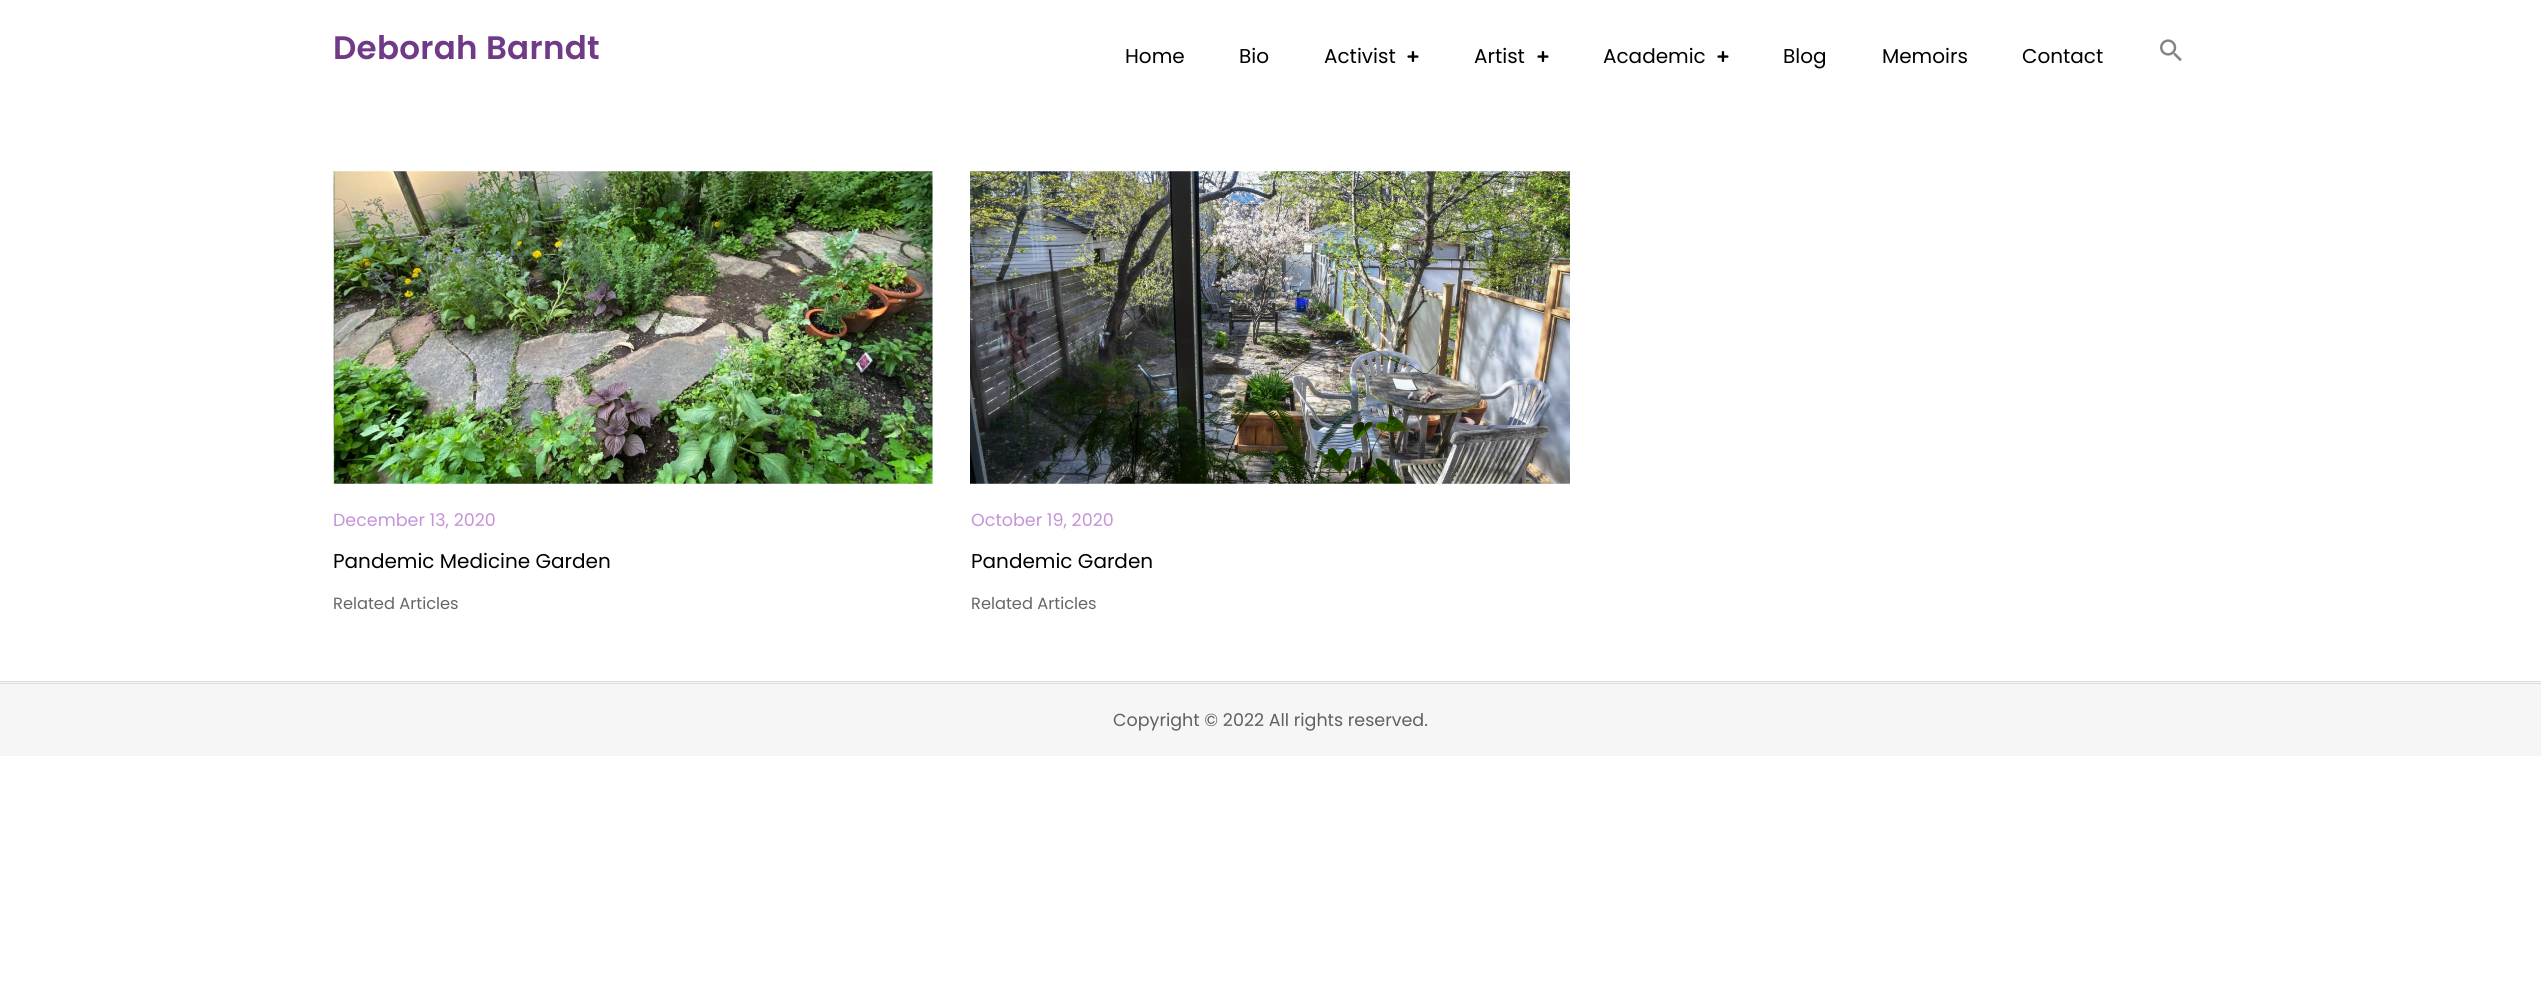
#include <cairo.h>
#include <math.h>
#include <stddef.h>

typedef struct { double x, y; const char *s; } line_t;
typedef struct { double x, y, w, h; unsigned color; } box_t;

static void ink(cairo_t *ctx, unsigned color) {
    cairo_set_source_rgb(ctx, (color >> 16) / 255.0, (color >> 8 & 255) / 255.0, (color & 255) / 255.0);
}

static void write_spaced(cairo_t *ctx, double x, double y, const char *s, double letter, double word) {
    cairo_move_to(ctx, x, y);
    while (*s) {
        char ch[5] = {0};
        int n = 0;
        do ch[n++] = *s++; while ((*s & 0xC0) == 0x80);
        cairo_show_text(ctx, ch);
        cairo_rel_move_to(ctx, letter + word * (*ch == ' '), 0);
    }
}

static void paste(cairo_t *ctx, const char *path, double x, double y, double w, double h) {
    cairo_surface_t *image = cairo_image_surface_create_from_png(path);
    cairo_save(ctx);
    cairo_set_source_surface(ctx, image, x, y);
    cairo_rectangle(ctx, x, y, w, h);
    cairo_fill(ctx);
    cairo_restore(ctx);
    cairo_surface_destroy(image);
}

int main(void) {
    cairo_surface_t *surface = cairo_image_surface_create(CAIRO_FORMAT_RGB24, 2541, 993);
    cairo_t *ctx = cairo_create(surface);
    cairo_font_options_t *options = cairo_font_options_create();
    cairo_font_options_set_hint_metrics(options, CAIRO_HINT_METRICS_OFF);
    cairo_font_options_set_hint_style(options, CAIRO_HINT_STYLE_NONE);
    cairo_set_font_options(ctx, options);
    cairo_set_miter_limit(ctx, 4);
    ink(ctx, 0xFFFFFF);
    cairo_paint(ctx);
    cairo_select_font_face(ctx, "Poppins SemiBold", CAIRO_FONT_SLANT_NORMAL, CAIRO_FONT_WEIGHT_NORMAL);
    cairo_set_font_size(ctx, 32.5);
    ink(ctx, 0x713A87);
    write_spaced(ctx, 333, 59, "Deborah Barndt", 0.3, 0);
    cairo_select_font_face(ctx, "Poppins", CAIRO_FONT_SLANT_NORMAL, CAIRO_FONT_WEIGHT_NORMAL);
    cairo_set_font_size(ctx, 20);
    ink(ctx, 0x000000);
    {
        static const line_t items[] = {
            {1125, 63, "Home"},
            {1239, 63, "Bio"},
            {1324, 63, "Activist"},
        };
        for (size_t i = 0; i < sizeof items / sizeof *items; i++) {
            cairo_move_to(ctx, items[i].x, items[i].y);
            cairo_show_text(ctx, items[i].s);
        }
    }
    paste(ctx, "media/1.png", 1407, 51, 12, 11);
    cairo_move_to(ctx, 1474, 63);
    cairo_show_text(ctx, "Artist");
    paste(ctx, "media/1.png", 1537, 51, 12, 11);
    cairo_move_to(ctx, 1603, 63);
    cairo_show_text(ctx, "Academic");
    paste(ctx, "media/1.png", 1717, 51, 12, 11);
    {
        static const line_t items[] = {
            {1783, 63, "Blog"},
            {1882, 63, "Memoirs"},
            {2022, 63, "Contact"},
        };
        for (size_t i = 0; i < sizeof items / sizeof *items; i++) {
            cairo_move_to(ctx, items[i].x, items[i].y);
            cairo_show_text(ctx, items[i].s);
        }
    }
    paste(ctx, "media/2.png", 2160, 39, 22, 22);
    paste(ctx, "media/3.png", 333, 171, 600, 313);
    cairo_set_font_size(ctx, 17.5);
    ink(ctx, 0xC593D8);
    cairo_move_to(ctx, 333, 526);
    cairo_show_text(ctx, "December 13, 2020");
    cairo_set_font_size(ctx, 20);
    ink(ctx, 0x000000);
    cairo_move_to(ctx, 333, 568);
    cairo_show_text(ctx, "Pandemic Medicine Garden");
    cairo_set_font_size(ctx, 16.25);
    ink(ctx, 0x666666);
    cairo_move_to(ctx, 333, 609);
    cairo_show_text(ctx, "Related Articles");
    paste(ctx, "media/4.png", 970, 171, 600, 313);
    cairo_set_font_size(ctx, 17.5);
    ink(ctx, 0xC593D8);
    cairo_move_to(ctx, 971, 526);
    cairo_show_text(ctx, "October 19, 2020");
    cairo_set_font_size(ctx, 20);
    ink(ctx, 0x000000);
    cairo_move_to(ctx, 971, 568);
    cairo_show_text(ctx, "Pandemic Garden");
    cairo_set_font_size(ctx, 16.25);
    ink(ctx, 0x666666);
    cairo_move_to(ctx, 971, 609);
    cairo_show_text(ctx, "Related Articles");
    {
        static const box_t items[] = {
            {0, 682, 2541, 74, 0xF6F6F6},
            {0, 681, 2541, 1, 0xDDDDDD},
            {0, 683, 2541, 1, 0xDDDDDD},
        };
        for (size_t i = 0; i < sizeof items / sizeof *items; i++) {
            ink(ctx, items[i].color);
            cairo_rectangle(ctx, items[i].x, items[i].y, items[i].w, items[i].h);
            cairo_fill(ctx);
        }
    }
    cairo_set_font_size(ctx, 17.5);
    ink(ctx, 0x606060);
    cairo_move_to(ctx, 1113, 726);
    cairo_show_text(ctx, "Copyright © 2022 All rights reserved.");
    cairo_surface_write_to_png(surface, "image.png");
    cairo_font_options_destroy(options);
    cairo_destroy(ctx);
    cairo_surface_destroy(surface);
    return 0;
}
